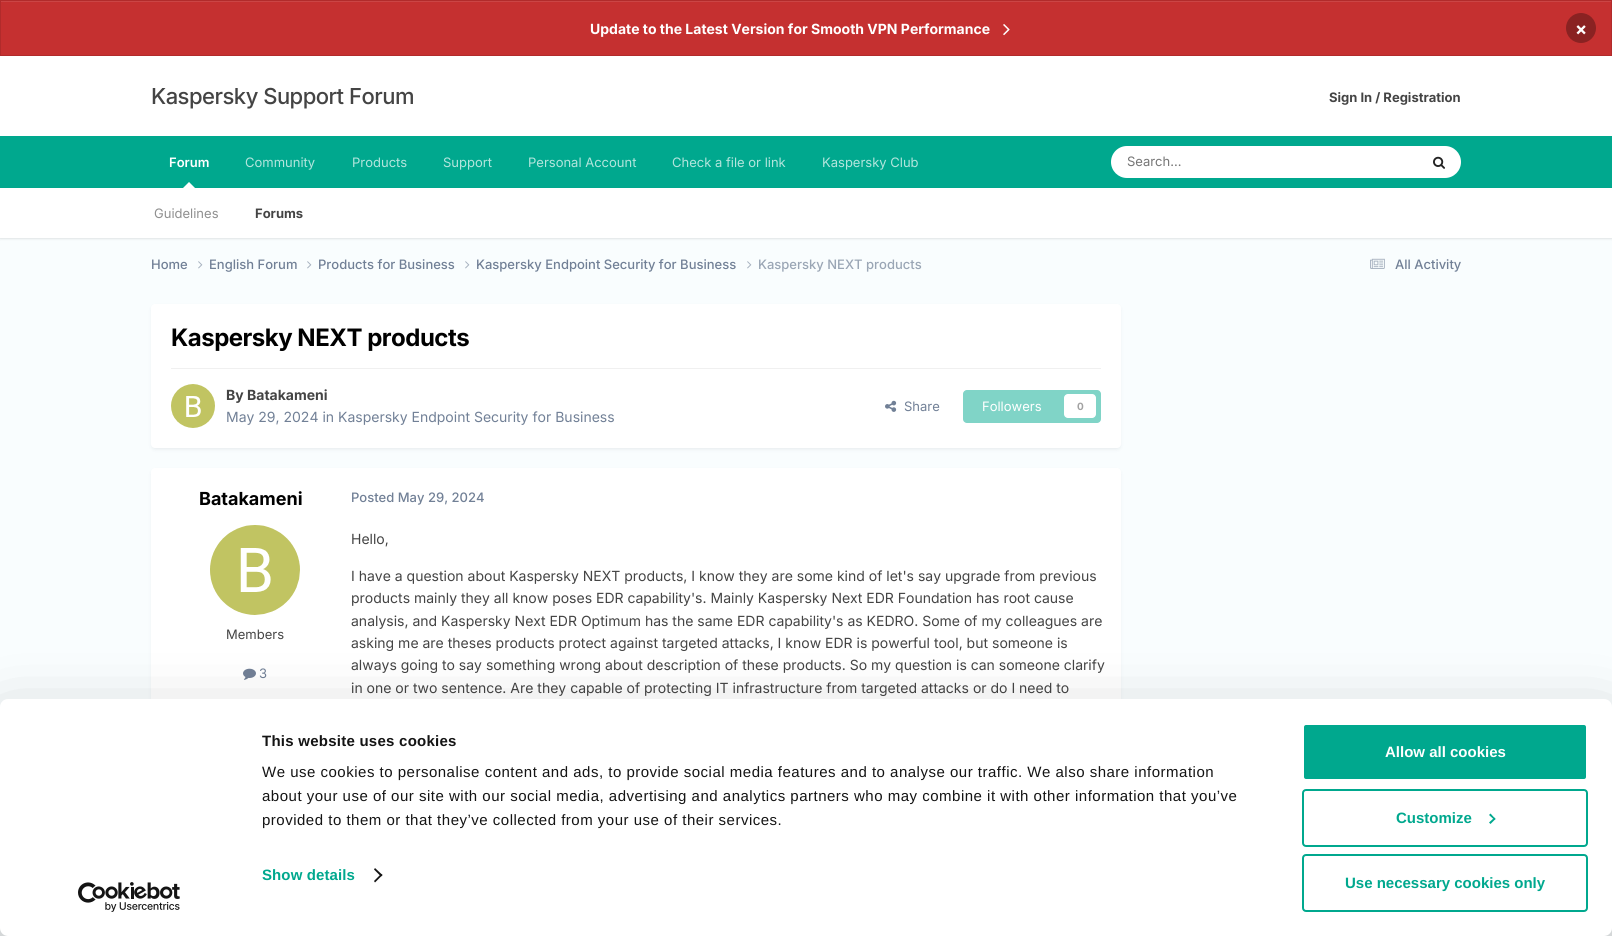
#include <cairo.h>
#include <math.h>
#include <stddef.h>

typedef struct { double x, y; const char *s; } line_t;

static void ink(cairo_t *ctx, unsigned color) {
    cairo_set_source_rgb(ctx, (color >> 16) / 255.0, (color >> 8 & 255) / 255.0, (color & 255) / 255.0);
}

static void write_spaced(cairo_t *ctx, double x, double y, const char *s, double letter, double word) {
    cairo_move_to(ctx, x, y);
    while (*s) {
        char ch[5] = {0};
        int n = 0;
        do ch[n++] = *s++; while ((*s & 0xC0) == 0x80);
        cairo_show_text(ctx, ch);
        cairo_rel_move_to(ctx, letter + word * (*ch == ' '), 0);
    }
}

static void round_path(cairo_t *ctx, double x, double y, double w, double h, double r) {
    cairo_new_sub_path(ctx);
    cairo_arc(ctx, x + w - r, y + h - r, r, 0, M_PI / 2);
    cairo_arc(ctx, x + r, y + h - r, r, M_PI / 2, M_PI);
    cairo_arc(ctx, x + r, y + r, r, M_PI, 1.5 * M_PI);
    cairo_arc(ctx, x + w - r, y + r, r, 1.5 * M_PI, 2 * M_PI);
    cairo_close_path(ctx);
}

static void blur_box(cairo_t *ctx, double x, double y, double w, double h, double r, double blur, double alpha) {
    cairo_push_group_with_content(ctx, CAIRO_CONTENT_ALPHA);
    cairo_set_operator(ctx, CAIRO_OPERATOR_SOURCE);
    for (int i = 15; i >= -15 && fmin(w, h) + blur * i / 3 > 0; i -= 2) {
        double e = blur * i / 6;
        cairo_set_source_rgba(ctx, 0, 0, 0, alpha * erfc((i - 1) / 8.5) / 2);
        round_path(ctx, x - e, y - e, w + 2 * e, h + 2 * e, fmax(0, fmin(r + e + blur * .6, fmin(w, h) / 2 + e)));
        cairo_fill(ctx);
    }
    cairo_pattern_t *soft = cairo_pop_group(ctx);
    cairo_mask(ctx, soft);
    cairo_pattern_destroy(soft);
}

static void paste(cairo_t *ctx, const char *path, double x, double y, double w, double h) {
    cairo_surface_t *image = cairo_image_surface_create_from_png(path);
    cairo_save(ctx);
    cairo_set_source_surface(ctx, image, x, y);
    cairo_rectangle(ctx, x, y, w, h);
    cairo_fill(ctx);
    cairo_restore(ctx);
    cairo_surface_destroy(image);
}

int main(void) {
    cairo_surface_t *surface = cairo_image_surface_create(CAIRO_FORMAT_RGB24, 1612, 936);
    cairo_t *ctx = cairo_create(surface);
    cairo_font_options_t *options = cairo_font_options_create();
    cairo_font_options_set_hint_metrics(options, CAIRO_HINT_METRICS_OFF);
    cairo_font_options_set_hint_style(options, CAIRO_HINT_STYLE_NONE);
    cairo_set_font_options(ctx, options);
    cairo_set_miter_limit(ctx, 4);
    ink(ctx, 0xF9FDFE);
    cairo_paint(ctx);
    ink(ctx, 0xC53030);
    cairo_rectangle(ctx, 1, 2, 1610, 53);
    cairo_fill(ctx);
    ink(ctx, 0xCB4545);
    cairo_rectangle(ctx, 1, 1, 1610, 1);
    cairo_fill(ctx);
    cairo_rectangle(ctx, 0.5, 0.5, 1611, 55);
    ink(ctx, 0xB12B2B);
    cairo_set_line_width(ctx, 1);
    cairo_stroke(ctx);
    cairo_select_font_face(ctx, "Inter", CAIRO_FONT_SLANT_NORMAL, CAIRO_FONT_WEIGHT_BOLD);
    cairo_set_font_size(ctx, 14);
    ink(ctx, 0xFFFFFF);
    cairo_move_to(ctx, 590, 34);
    cairo_show_text(ctx, "Update to the Latest Version for Smooth VPN Performance");
    paste(ctx, "media/1.png", 1003, 24, 7, 12);
    ink(ctx, 0x8A2222);
    cairo_arc(ctx, 1581, 28, 15, 0, 2 * M_PI);
    cairo_fill(ctx);
    cairo_set_font_size(ctx, 18);
    ink(ctx, 0xFFFFFF);
    cairo_move_to(ctx, 1575, 35);
    cairo_show_text(ctx, "×");
    cairo_rectangle(ctx, 0, 56, 1612, 80);
    cairo_fill(ctx);
    cairo_select_font_face(ctx, "Inter Medium", CAIRO_FONT_SLANT_NORMAL, CAIRO_FONT_WEIGHT_NORMAL);
    cairo_set_font_size(ctx, 22);
    ink(ctx, 0x444444);
    write_spaced(ctx, 151, 104, "Kaspersky Support Forum", -0.5, 0);
    cairo_select_font_face(ctx, "Inter", CAIRO_FONT_SLANT_NORMAL, CAIRO_FONT_WEIGHT_BOLD);
    cairo_set_font_size(ctx, 13);
    cairo_move_to(ctx, 1329, 102);
    cairo_show_text(ctx, "Sign In / Registration");
    ink(ctx, 0x00A88E);
    cairo_rectangle(ctx, 0, 136, 1612, 52);
    cairo_fill(ctx);
    cairo_select_font_face(ctx, "Inter SemiBold", CAIRO_FONT_SLANT_NORMAL, CAIRO_FONT_WEIGHT_NORMAL);
    ink(ctx, 0xFFFFFF);
    cairo_move_to(ctx, 169, 167);
    cairo_show_text(ctx, "Forum");
    ink(ctx, 0x000000);
    blur_box(ctx, 0, 189, 1612, 50, 0, 1, 0.1);
    ink(ctx, 0xFFFFFF);
    cairo_new_path(ctx);
    cairo_move_to(ctx, 195, 188);
    cairo_line_to(ctx, 183, 188);
    cairo_line_to(ctx, 189, 182);
    cairo_close_path(ctx);
    cairo_fill(ctx);
    cairo_rectangle(ctx, 0, 188, 1612, 50);
    cairo_fill(ctx);
    cairo_select_font_face(ctx, "Inter", CAIRO_FONT_SLANT_NORMAL, CAIRO_FONT_WEIGHT_NORMAL);
    ink(ctx, 0x8F8F8F);
    cairo_move_to(ctx, 154, 218);
    cairo_show_text(ctx, "Guidelines");
    cairo_select_font_face(ctx, "Inter", CAIRO_FONT_SLANT_NORMAL, CAIRO_FONT_WEIGHT_BOLD);
    ink(ctx, 0x444444);
    cairo_move_to(ctx, 255, 218);
    cairo_show_text(ctx, "Forums");
    cairo_select_font_face(ctx, "Inter", CAIRO_FONT_SLANT_NORMAL, CAIRO_FONT_WEIGHT_NORMAL);
    ink(ctx, 0xB3E5DD);
    {
        static const line_t items[] = {
            {245, 167, "Community"},
            {352, 167, "Products"},
            {443, 167, "Support"},
            {528, 167, "Personal Account"},
            {672, 167, "Check a file or link"},
            {822, 167, "Kaspersky Club"},
        };
        for (size_t i = 0; i < sizeof items / sizeof *items; i++) {
            cairo_move_to(ctx, items[i].x, items[i].y);
            cairo_show_text(ctx, items[i].s);
        }
    }
    ink(ctx, 0xFFFFFF);
    round_path(ctx, 1111, 146, 350, 32, 16);
    cairo_fill(ctx);
    ink(ctx, 0x757575);
    cairo_move_to(ctx, 1127, 166);
    cairo_show_text(ctx, "Search...");
    paste(ctx, "media/2.png", 1433, 156, 12, 13);
    cairo_select_font_face(ctx, "Inter Medium", CAIRO_FONT_SLANT_NORMAL, CAIRO_FONT_WEIGHT_NORMAL);
    ink(ctx, 0x718096);
    cairo_move_to(ctx, 151, 269);
    cairo_show_text(ctx, "Home");
    paste(ctx, "media/3.png", 198, 261, 5, 8);
    cairo_move_to(ctx, 209, 269);
    cairo_show_text(ctx, "English Forum");
    paste(ctx, "media/3.png", 307, 261, 5, 8);
    cairo_move_to(ctx, 318, 269);
    cairo_show_text(ctx, "Products for Business");
    paste(ctx, "media/3.png", 465, 261, 5, 8);
    cairo_move_to(ctx, 476, 269);
    cairo_show_text(ctx, "Kaspersky Endpoint Security for Business");
    paste(ctx, "media/3.png", 747, 261, 5, 8);
    ink(ctx, 0x9AA6B5);
    cairo_move_to(ctx, 758, 269);
    cairo_show_text(ctx, "Kaspersky NEXT products");
    paste(ctx, "media/4.png", 1370, 258, 15, 11);
    ink(ctx, 0x718096);
    cairo_move_to(ctx, 1395, 269);
    cairo_show_text(ctx, "All Activity");
    ink(ctx, 0x2D3748);
    blur_box(ctx, 152, 307, 968, 142, 3, 2, 0.1);
    ink(ctx, 0xFFFFFF);
    round_path(ctx, 151, 304, 970, 144, 4);
    cairo_fill(ctx);
    cairo_select_font_face(ctx, "Inter", CAIRO_FONT_SLANT_NORMAL, CAIRO_FONT_WEIGHT_BOLD);
    cairo_set_font_size(ctx, 24);
    ink(ctx, 0x000000);
    write_spaced(ctx, 171, 346, "Kaspersky NEXT products", -0.5, 0);
    ink(ctx, 0xF0F0F0);
    cairo_rectangle(ctx, 171, 368, 930, 1);
    cairo_fill(ctx);
    paste(ctx, "media/5.png", 171, 384, 44, 44);
    cairo_set_font_size(ctx, 14);
    ink(ctx, 0x444444);
    cairo_move_to(ctx, 226, 400);
    cairo_show_text(ctx, "By Batakameni");
    cairo_select_font_face(ctx, "Inter", CAIRO_FONT_SLANT_NORMAL, CAIRO_FONT_WEIGHT_NORMAL);
    ink(ctx, 0x718096);
    cairo_move_to(ctx, 226, 422);
    cairo_show_text(ctx, "May 29, 2024 in Kaspersky Endpoint Security for Business");
    paste(ctx, "media/6.png", 885, 400, 12, 12);
    cairo_set_font_size(ctx, 13);
    cairo_move_to(ctx, 904, 411);
    cairo_show_text(ctx, "Share");
    ink(ctx, 0x80D4C7);
    round_path(ctx, 963, 390, 138, 33, 4);
    cairo_fill(ctx);
    ink(ctx, 0xFFFFFF);
    cairo_move_to(ctx, 982, 411);
    cairo_show_text(ctx, "Followers");
    round_path(ctx, 1064, 394, 32, 24, 4);
    cairo_fill(ctx);
    cairo_select_font_face(ctx, "Inter", CAIRO_FONT_SLANT_NORMAL, CAIRO_FONT_WEIGHT_BOLD);
    cairo_set_font_size(ctx, 10);
    ink(ctx, 0xA2A2A2);
    cairo_move_to(ctx, 1077, 410);
    cairo_show_text(ctx, "0");
    ink(ctx, 0x2D3748);
    blur_box(ctx, 152, 471, 968, 271, 3, 2, 0.1);
    ink(ctx, 0xFFFFFF);
    round_path(ctx, 151, 468, 970, 273, 4);
    cairo_fill(ctx);
    cairo_set_font_size(ctx, 18);
    ink(ctx, 0x000000);
    cairo_move_to(ctx, 199, 505);
    cairo_show_text(ctx, "Batakameni");
    paste(ctx, "media/7.png", 210, 525, 90, 90);
    cairo_select_font_face(ctx, "Inter", CAIRO_FONT_SLANT_NORMAL, CAIRO_FONT_WEIGHT_NORMAL);
    cairo_set_font_size(ctx, 13);
    ink(ctx, 0x444444);
    cairo_move_to(ctx, 226, 639);
    cairo_show_text(ctx, "Members");
    paste(ctx, "media/8.png", 243, 668, 13, 12);
    ink(ctx, 0x718096);
    cairo_move_to(ctx, 259, 678);
    cairo_show_text(ctx, "3");
    cairo_select_font_face(ctx, "Inter Medium", CAIRO_FONT_SLANT_NORMAL, CAIRO_FONT_WEIGHT_NORMAL);
    cairo_move_to(ctx, 351, 502);
    cairo_show_text(ctx, "Posted May 29, 2024");
    cairo_select_font_face(ctx, "Inter", CAIRO_FONT_SLANT_NORMAL, CAIRO_FONT_WEIGHT_NORMAL);
    cairo_set_font_size(ctx, 14);
    ink(ctx, 0x444444);
    {
        static const line_t items[] = {
            {351, 544, "Hello,"},
            {351, 581, "I have a question about Kaspersky NEXT products, I know they are some kind of let's say upgrade from previous"},
            {351, 603, "products mainly they all know poses EDR capability's. Mainly Kaspersky Next EDR Foundation has root cause"},
            {351, 626, "analysis, and Kaspersky Next EDR Optimum has the same EDR capability's as KEDRO. Some of my colleagues are"},
            {351, 648, "asking me are theses products protect against targeted attacks, I know EDR is powerful tool, but someone is"},
            {351, 670, "always going to say something wrong about description of these products. So my question is can someone clarify"},
            {351, 693, "in one or two sentence. Are they capable of protecting IT infrastructure from targeted attacks or do I need to"},
        };
        for (size_t i = 0; i < sizeof items / sizeof *items; i++) {
            cairo_move_to(ctx, items[i].x, items[i].y);
            cairo_show_text(ctx, items[i].s);
        }
    }
    ink(ctx, 0x000000);
    blur_box(ctx, 0, 729, 1612, 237, 8, 35, 0.3);
    ink(ctx, 0xFFFFFF);
    round_path(ctx, 0, 699, 1612, 237, 8);
    cairo_fill(ctx);
    cairo_select_font_face(ctx, "Liberation Sans", CAIRO_FONT_SLANT_NORMAL, CAIRO_FONT_WEIGHT_BOLD);
    cairo_set_font_size(ctx, 15);
    ink(ctx, 0x141414);
    write_spaced(ctx, 262, 746, "This website uses cookies", 0.25, 0);
    cairo_select_font_face(ctx, "Liberation Sans", CAIRO_FONT_SLANT_NORMAL, CAIRO_FONT_WEIGHT_NORMAL);
    {
        static const line_t items[] = {
            {262, 777, "We use cookies to personalise content and ads, to provide social media features and to analyse our traffic. We also share information"},
            {262, 801, "about your use of our site with our social media, advertising and analytics partners who may combine it with other information that you’ve"},
            {262, 825, "provided to them or that they’ve collected from your use of their services."},
        };
        for (size_t i = 0; i < sizeof items / sizeof *items; i++) {
            write_spaced(ctx, items[i].x, items[i].y, items[i].s, 0.5, 0);
        }
    }
    cairo_select_font_face(ctx, "Liberation Sans", CAIRO_FONT_SLANT_NORMAL, CAIRO_FONT_WEIGHT_BOLD);
    ink(ctx, 0x00A88E);
    write_spaced(ctx, 262, 880, "Show details", 0.1, 0);
    ink(ctx, 0x141414);
    cairo_new_path(ctx);
    cairo_move_to(ctx, 375, 868);
    cairo_line_to(ctx, 382.5, 875);
    cairo_line_to(ctx, 381, 876.5);
    cairo_line_to(ctx, 374, 869.5);
    cairo_close_path(ctx);
    cairo_fill(ctx);
    cairo_new_path(ctx);
    cairo_move_to(ctx, 381, 874);
    cairo_line_to(ctx, 382.5, 875);
    cairo_line_to(ctx, 375, 882.5);
    cairo_line_to(ctx, 374, 881);
    cairo_close_path(ctx);
    cairo_fill(ctx);
    ink(ctx, 0x00A88E);
    round_path(ctx, 1303, 724, 284, 56, 3);
    cairo_fill_preserve(ctx);
    ink(ctx, 0xFFFFFF);
    cairo_set_line_width(ctx, 2);
    cairo_stroke(ctx);
    cairo_move_to(ctx, 1385, 757);
    cairo_show_text(ctx, "Allow all cookies");
    round_path(ctx, 1303, 790, 284, 56, 3);
    ink(ctx, 0x00A88E);
    cairo_stroke(ctx);
    cairo_move_to(ctx, 1396, 823);
    cairo_show_text(ctx, "Customize");
    cairo_new_path(ctx);
    cairo_move_to(ctx, 1490.5, 813.5);
    cairo_line_to(ctx, 1495.5, 819);
    cairo_line_to(ctx, 1494.5, 820);
    cairo_line_to(ctx, 1489, 815);
    cairo_close_path(ctx);
    cairo_fill(ctx);
    cairo_new_path(ctx);
    cairo_move_to(ctx, 1494.5, 817.5);
    cairo_line_to(ctx, 1495.5, 819);
    cairo_line_to(ctx, 1490.5, 824);
    cairo_line_to(ctx, 1489, 822.5);
    cairo_close_path(ctx);
    cairo_fill(ctx);
    round_path(ctx, 1303, 855, 284, 56, 3);
    cairo_stroke(ctx);
    cairo_move_to(ctx, 1345, 888);
    cairo_show_text(ctx, "Use necessary cookies only");
    paste(ctx, "media/9.png", 78, 882, 102, 30);
    cairo_surface_write_to_png(surface, "image.png");
    cairo_font_options_destroy(options);
    cairo_destroy(ctx);
    cairo_surface_destroy(surface);
    return 0;
}
